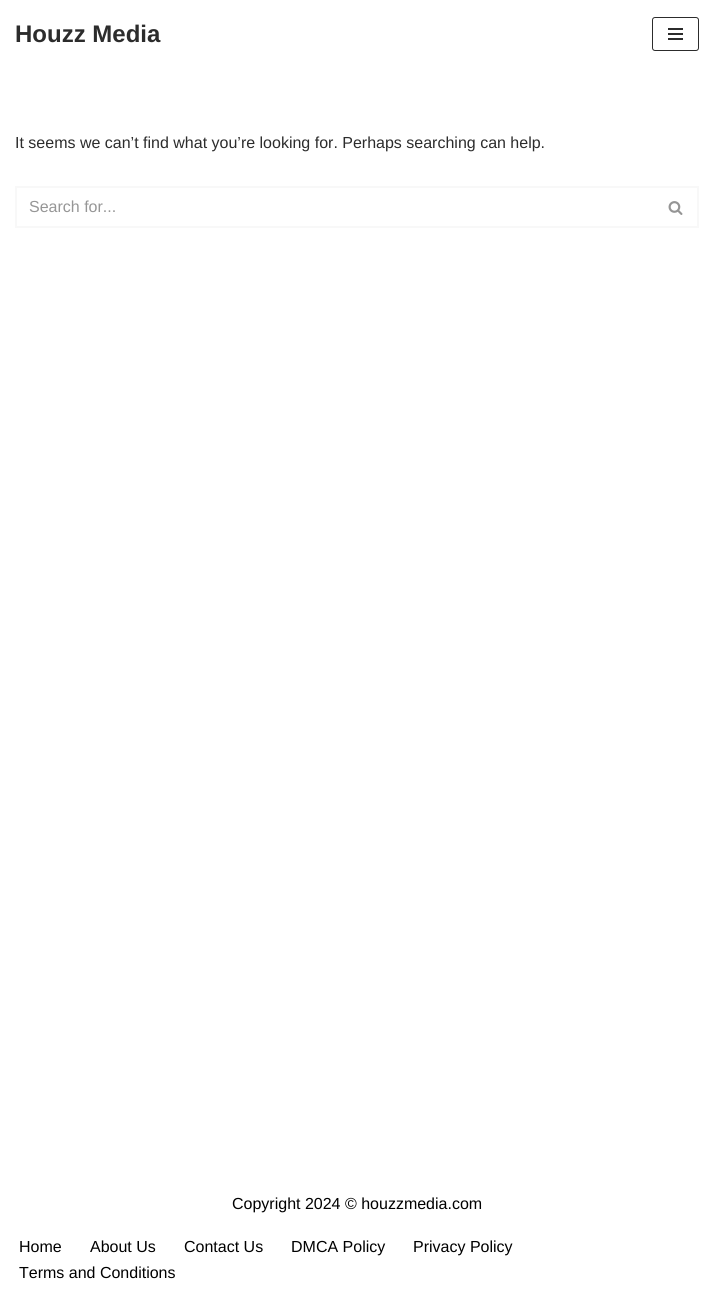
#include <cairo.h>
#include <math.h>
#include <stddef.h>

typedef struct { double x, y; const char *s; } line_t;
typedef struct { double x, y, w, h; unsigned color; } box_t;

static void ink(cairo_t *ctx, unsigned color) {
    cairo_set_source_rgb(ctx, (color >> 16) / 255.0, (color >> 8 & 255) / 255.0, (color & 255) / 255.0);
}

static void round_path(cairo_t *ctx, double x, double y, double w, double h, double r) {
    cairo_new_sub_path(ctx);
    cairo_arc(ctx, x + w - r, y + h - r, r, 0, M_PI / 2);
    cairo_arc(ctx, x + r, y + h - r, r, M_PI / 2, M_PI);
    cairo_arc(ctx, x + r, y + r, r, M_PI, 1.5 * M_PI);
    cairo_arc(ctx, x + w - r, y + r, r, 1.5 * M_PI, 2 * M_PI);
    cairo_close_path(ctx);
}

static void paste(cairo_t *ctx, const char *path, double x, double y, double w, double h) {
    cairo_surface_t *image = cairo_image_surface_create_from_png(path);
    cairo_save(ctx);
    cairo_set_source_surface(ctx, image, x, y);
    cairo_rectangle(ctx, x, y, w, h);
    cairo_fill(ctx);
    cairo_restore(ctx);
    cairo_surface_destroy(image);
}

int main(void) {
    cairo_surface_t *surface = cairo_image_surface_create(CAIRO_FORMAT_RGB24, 714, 1294);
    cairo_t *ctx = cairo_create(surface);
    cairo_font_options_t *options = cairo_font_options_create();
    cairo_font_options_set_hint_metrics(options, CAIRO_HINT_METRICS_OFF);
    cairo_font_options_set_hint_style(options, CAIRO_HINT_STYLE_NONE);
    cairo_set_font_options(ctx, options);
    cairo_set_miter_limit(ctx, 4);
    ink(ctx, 0xFFFFFF);
    cairo_paint(ctx);
    cairo_select_font_face(ctx, "Liberation Sans", CAIRO_FONT_SLANT_NORMAL, CAIRO_FONT_WEIGHT_BOLD);
    cairo_set_font_size(ctx, 24);
    ink(ctx, 0x2C2C2C);
    cairo_move_to(ctx, 15, 42);
    cairo_show_text(ctx, "Houzz Media");
    round_path(ctx, 652.5, 17.5, 46, 33, 2.5);
    cairo_set_line_width(ctx, 1);
    cairo_stroke(ctx);
    {
        static const box_t items[] = {
            {668, 28, 15, 2, 0x2C2C2C},
            {668, 33, 15, 2, 0x2C2C2C},
            {668, 38, 15, 2, 0x2C2C2C},
        };
        for (size_t i = 0; i < sizeof items / sizeof *items; i++) {
            ink(ctx, items[i].color);
            cairo_rectangle(ctx, items[i].x, items[i].y, items[i].w, items[i].h);
            cairo_fill(ctx);
        }
    }
    cairo_select_font_face(ctx, "Liberation Sans", CAIRO_FONT_SLANT_NORMAL, CAIRO_FONT_WEIGHT_NORMAL);
    cairo_set_font_size(ctx, 16);
    cairo_move_to(ctx, 15, 148);
    cairo_show_text(ctx, "It seems we can’t find what you’re looking for. Perhaps searching can help.");
    {
        static const box_t items[] = {
            {15, 186, 684, 2, 0xF8F8F8},
            {15, 226, 639, 2, 0xF8F8F8},
            {15, 186, 2, 42, 0xF8F8F8},
        };
        for (size_t i = 0; i < sizeof items / sizeof *items; i++) {
            ink(ctx, items[i].color);
            cairo_rectangle(ctx, items[i].x, items[i].y, items[i].w, items[i].h);
            cairo_fill(ctx);
        }
    }
    ink(ctx, 0x969696);
    cairo_move_to(ctx, 29, 212);
    cairo_show_text(ctx, "Search for...");
    ink(ctx, 0xF8F8F8);
    cairo_rectangle(ctx, 697, 186, 2, 42);
    cairo_fill(ctx);
    cairo_rectangle(ctx, 654, 226, 45, 2);
    cairo_fill(ctx);
    paste(ctx, "media/1.png", 668, 201, 15, 14);
    ink(ctx, 0x000000);
    {
        static const line_t items[] = {
            {232, 1209, "Copyright 2024 © houzzmedia.com"},
            {19, 1252, "Home"},
            {90, 1252, "About Us"},
            {184, 1252, "Contact Us"},
            {291, 1252, "DMCA Policy"},
            {413, 1252, "Privacy Policy"},
            {19, 1278, "Terms and Conditions"},
        };
        for (size_t i = 0; i < sizeof items / sizeof *items; i++) {
            cairo_move_to(ctx, items[i].x, items[i].y);
            cairo_show_text(ctx, items[i].s);
        }
    }
    cairo_surface_write_to_png(surface, "image.png");
    cairo_font_options_destroy(options);
    cairo_destroy(ctx);
    cairo_surface_destroy(surface);
    return 0;
}
